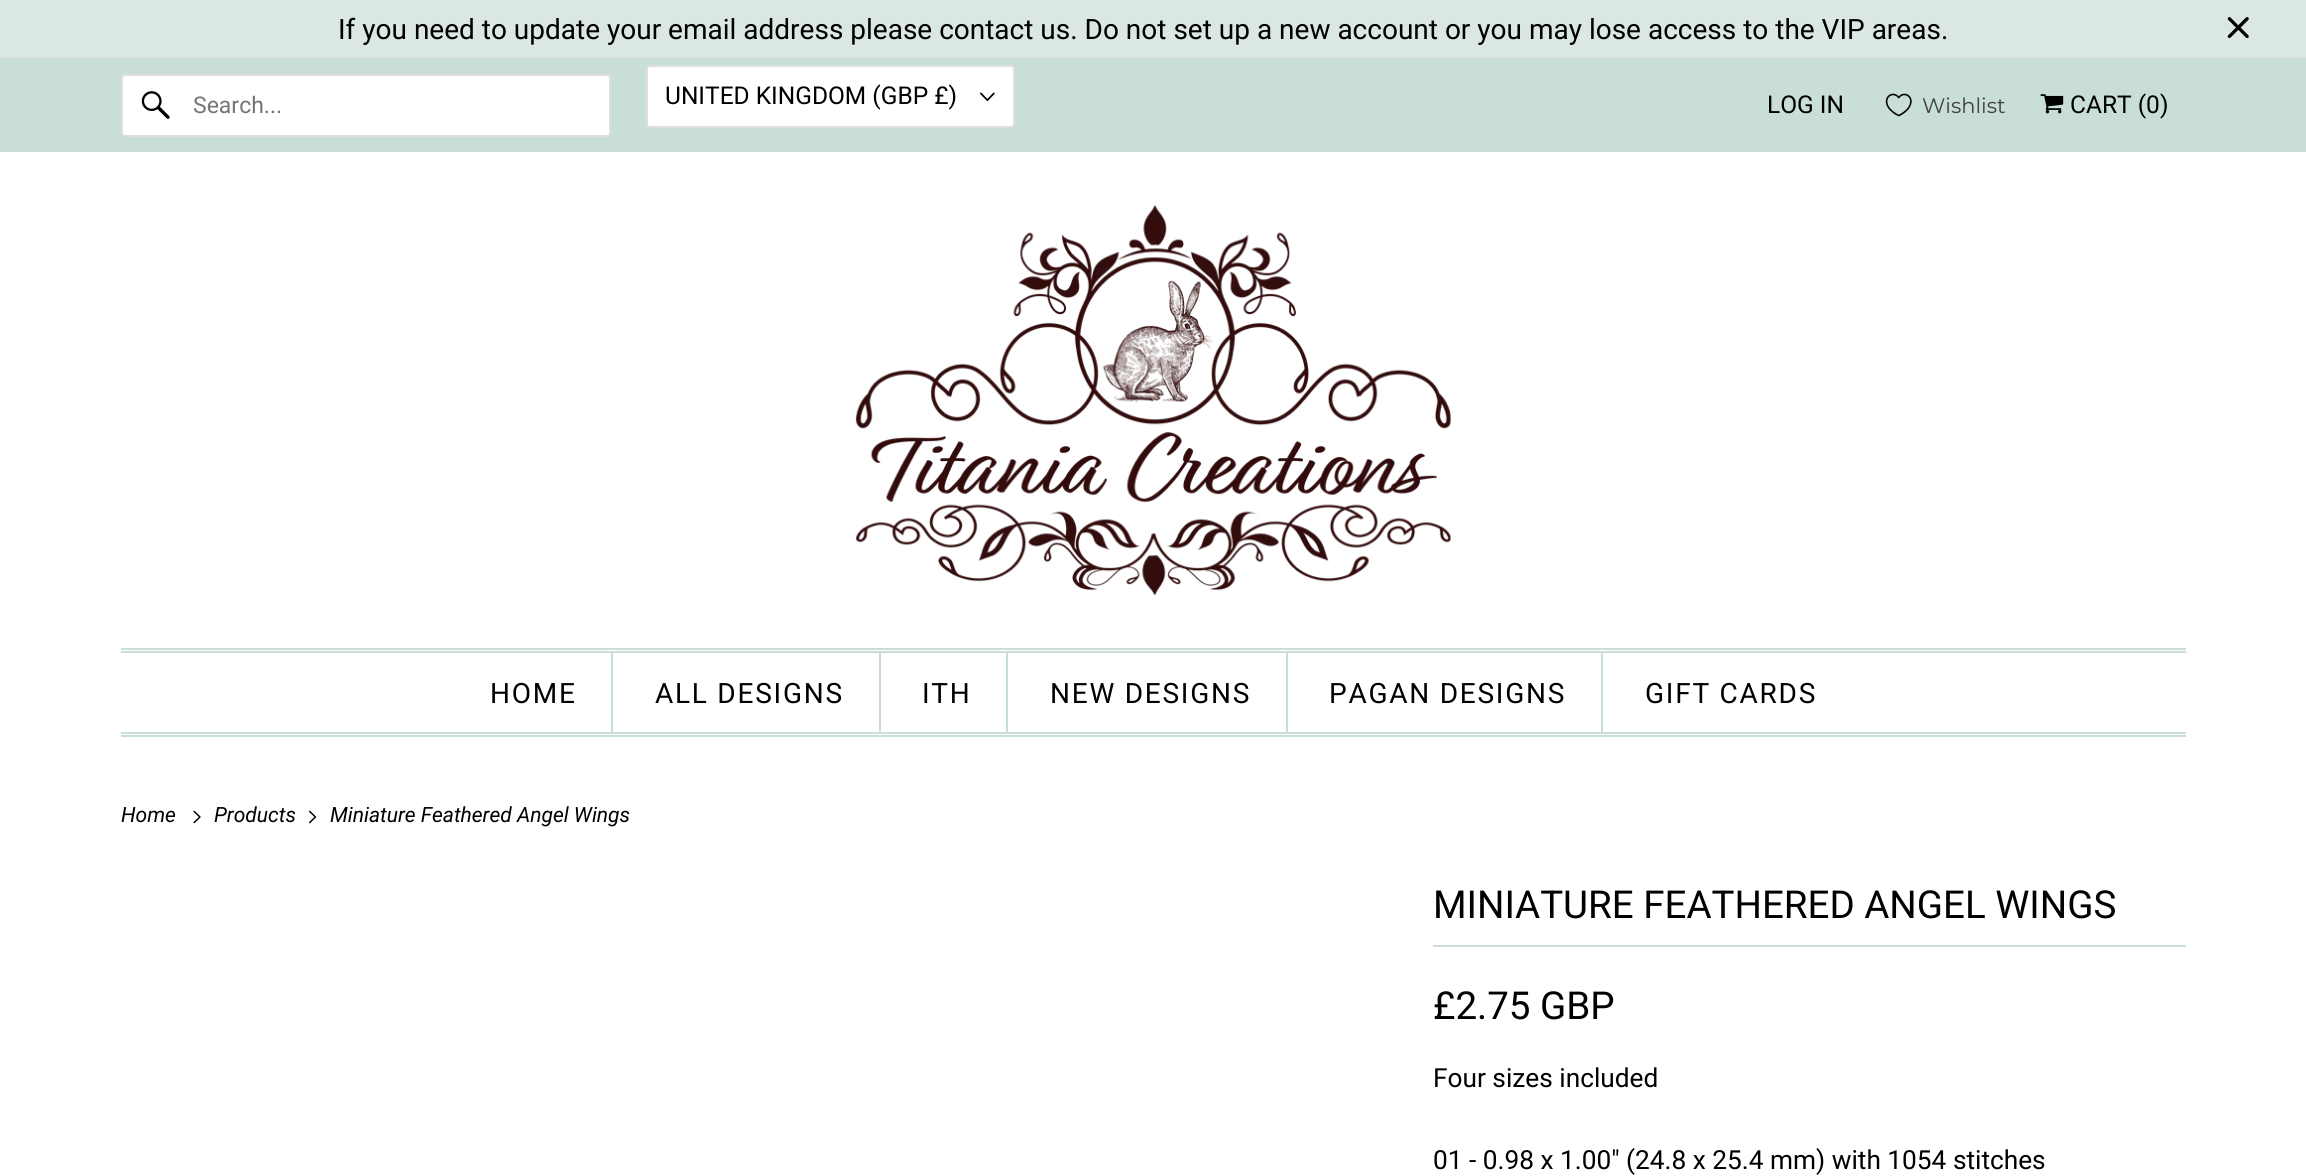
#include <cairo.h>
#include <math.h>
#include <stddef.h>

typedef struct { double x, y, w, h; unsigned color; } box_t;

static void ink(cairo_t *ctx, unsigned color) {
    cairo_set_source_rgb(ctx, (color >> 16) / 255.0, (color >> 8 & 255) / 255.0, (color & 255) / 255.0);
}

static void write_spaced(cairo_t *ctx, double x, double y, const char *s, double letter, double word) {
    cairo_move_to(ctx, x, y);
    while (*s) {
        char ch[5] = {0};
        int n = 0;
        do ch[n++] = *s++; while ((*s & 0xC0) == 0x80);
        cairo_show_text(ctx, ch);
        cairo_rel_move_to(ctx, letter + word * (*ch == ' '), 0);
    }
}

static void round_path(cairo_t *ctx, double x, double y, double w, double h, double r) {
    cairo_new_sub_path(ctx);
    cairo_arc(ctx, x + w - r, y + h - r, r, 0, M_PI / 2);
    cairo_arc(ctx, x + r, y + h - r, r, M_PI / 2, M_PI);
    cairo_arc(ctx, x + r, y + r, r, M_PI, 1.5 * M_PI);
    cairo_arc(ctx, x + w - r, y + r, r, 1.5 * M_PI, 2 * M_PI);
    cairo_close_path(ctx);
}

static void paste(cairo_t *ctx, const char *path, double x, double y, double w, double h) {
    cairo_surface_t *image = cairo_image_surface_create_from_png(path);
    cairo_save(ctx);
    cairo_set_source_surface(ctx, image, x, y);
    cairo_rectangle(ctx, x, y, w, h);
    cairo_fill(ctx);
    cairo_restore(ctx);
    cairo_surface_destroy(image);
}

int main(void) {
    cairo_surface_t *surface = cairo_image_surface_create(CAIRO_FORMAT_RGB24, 2306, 1176);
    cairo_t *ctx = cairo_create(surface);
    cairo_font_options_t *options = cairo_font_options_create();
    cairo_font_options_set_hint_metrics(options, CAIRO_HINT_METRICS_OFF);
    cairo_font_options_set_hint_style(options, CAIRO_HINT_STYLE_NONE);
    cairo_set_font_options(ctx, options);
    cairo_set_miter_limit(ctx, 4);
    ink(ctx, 0xFFFFFF);
    cairo_paint(ctx);
    ink(ctx, 0xDAE7E3);
    cairo_rectangle(ctx, 0, 0, 2306, 58);
    cairo_fill(ctx);
    cairo_select_font_face(ctx, "Roboto", CAIRO_FONT_SLANT_NORMAL, CAIRO_FONT_WEIGHT_NORMAL);
    cairo_set_font_size(ctx, 28);
    ink(ctx, 0x000000);
    cairo_move_to(ctx, 338, 39);
    cairo_show_text(ctx, "If you need to update your email address please contact us. Do not set up a new account or you may lose access to the VIP areas.");
    paste(ctx, "media/1.png", 2227, 17, 22, 22);
    ink(ctx, 0xCADED8);
    cairo_rectangle(ctx, 0, 58, 2306, 94);
    cairo_fill(ctx);
    ink(ctx, 0xFFFFFF);
    round_path(ctx, 122, 75, 488, 61, 3);
    cairo_fill_preserve(ctx);
    ink(ctx, 0xDFDFDF);
    cairo_stroke(ctx);
    paste(ctx, "media/2.png", 141, 91, 29, 28);
    cairo_set_font_size(ctx, 23);
    ink(ctx, 0x757575);
    cairo_move_to(ctx, 193, 113);
    cairo_show_text(ctx, "Search...");
    ink(ctx, 0xFFFFFF);
    round_path(ctx, 647, 66, 367, 61, 3);
    cairo_fill_preserve(ctx);
    ink(ctx, 0xDFDFDF);
    cairo_stroke(ctx);
    cairo_set_font_size(ctx, 24.5);
    ink(ctx, 0x000000);
    cairo_move_to(ctx, 665, 104);
    cairo_show_text(ctx, "UNITED KINGDOM (GBP £)");
    paste(ctx, "media/3.png", 980, 92, 15, 9);
    cairo_move_to(ctx, 1767, 113);
    cairo_show_text(ctx, "LOG IN");
    paste(ctx, "media/4.png", 1885, 93, 27, 24);
    cairo_select_font_face(ctx, "Montserrat", CAIRO_FONT_SLANT_NORMAL, CAIRO_FONT_WEIGHT_NORMAL);
    cairo_set_font_size(ctx, 21);
    ink(ctx, 0x404040);
    cairo_move_to(ctx, 1922, 113);
    cairo_show_text(ctx, "Wishlist");
    paste(ctx, "media/5.png", 2040, 94, 24, 20);
    cairo_select_font_face(ctx, "Roboto", CAIRO_FONT_SLANT_NORMAL, CAIRO_FONT_WEIGHT_NORMAL);
    cairo_set_font_size(ctx, 24.5);
    ink(ctx, 0x000000);
    cairo_move_to(ctx, 2070, 113);
    cairo_show_text(ctx, "CART (0)");
    paste(ctx, "media/6.png", 855, 205, 596, 390);
    {
        static const box_t items[] = {
            {121, 648, 2065, 2, 0xCADED8},
            {121, 651, 2065, 2, 0xCADED8},
            {121, 732, 2065, 2, 0xCADED8},
            {121, 735, 2065, 2, 0xCADED8},
            {611, 653, 2, 79, 0xCADED8},
        };
        for (size_t i = 0; i < sizeof items / sizeof *items; i++) {
            ink(ctx, items[i].color);
            cairo_rectangle(ctx, items[i].x, items[i].y, items[i].w, items[i].h);
            cairo_fill(ctx);
        }
    }
    cairo_set_font_size(ctx, 28);
    ink(ctx, 0x000000);
    write_spaced(ctx, 490, 703, "HOME", 1.75, 0);
    ink(ctx, 0xCADED8);
    cairo_rectangle(ctx, 879, 653, 2, 79);
    cairo_fill(ctx);
    ink(ctx, 0x000000);
    write_spaced(ctx, 655, 703, "ALL DESIGNS", 1.75, 0);
    ink(ctx, 0xCADED8);
    cairo_rectangle(ctx, 1006, 653, 2, 79);
    cairo_fill(ctx);
    ink(ctx, 0x000000);
    write_spaced(ctx, 922, 703, "ITH", 1.75, 0);
    ink(ctx, 0xCADED8);
    cairo_rectangle(ctx, 1286, 653, 2, 79);
    cairo_fill(ctx);
    ink(ctx, 0x000000);
    write_spaced(ctx, 1050, 703, "NEW DESIGNS", 1.75, 0);
    ink(ctx, 0xCADED8);
    cairo_rectangle(ctx, 1601, 653, 2, 79);
    cairo_fill(ctx);
    ink(ctx, 0x000000);
    write_spaced(ctx, 1329, 703, "PAGAN DESIGNS", 1.75, 0);
    write_spaced(ctx, 1645, 703, "GIFT CARDS", 1.75, 0);
    cairo_select_font_face(ctx, "Roboto", CAIRO_FONT_SLANT_ITALIC, CAIRO_FONT_WEIGHT_NORMAL);
    cairo_set_font_size(ctx, 21);
    cairo_move_to(ctx, 121, 822);
    cairo_show_text(ctx, "Home");
    paste(ctx, "media/7.png", 193, 810, 8, 14);
    cairo_move_to(ctx, 214, 822);
    cairo_show_text(ctx, "Products");
    paste(ctx, "media/8.png", 308, 810, 9, 14);
    cairo_move_to(ctx, 330, 822);
    cairo_show_text(ctx, "Miniature Feathered Angel Wings");
    ink(ctx, 0xCADED8);
    cairo_rectangle(ctx, 1433, 945, 753, 2);
    cairo_fill(ctx);
    cairo_select_font_face(ctx, "Roboto", CAIRO_FONT_SLANT_NORMAL, CAIRO_FONT_WEIGHT_NORMAL);
    cairo_set_font_size(ctx, 38.5);
    ink(ctx, 0x000000);
    cairo_move_to(ctx, 1433, 918);
    cairo_show_text(ctx, "MINIATURE FEATHERED ANGEL WINGS");
    cairo_move_to(ctx, 1433, 1019);
    cairo_show_text(ctx, "£2.75 GBP");
    cairo_set_font_size(ctx, 26.25);
    cairo_move_to(ctx, 1433, 1087);
    cairo_show_text(ctx, "Four sizes included");
    cairo_move_to(ctx, 1433, 1169);
    cairo_show_text(ctx, "01 - 0.98 x 1.00\" (24.8 x 25.4 mm) with 1054 stitches");
    cairo_surface_write_to_png(surface, "image.png");
    cairo_font_options_destroy(options);
    cairo_destroy(ctx);
    cairo_surface_destroy(surface);
    return 0;
}
